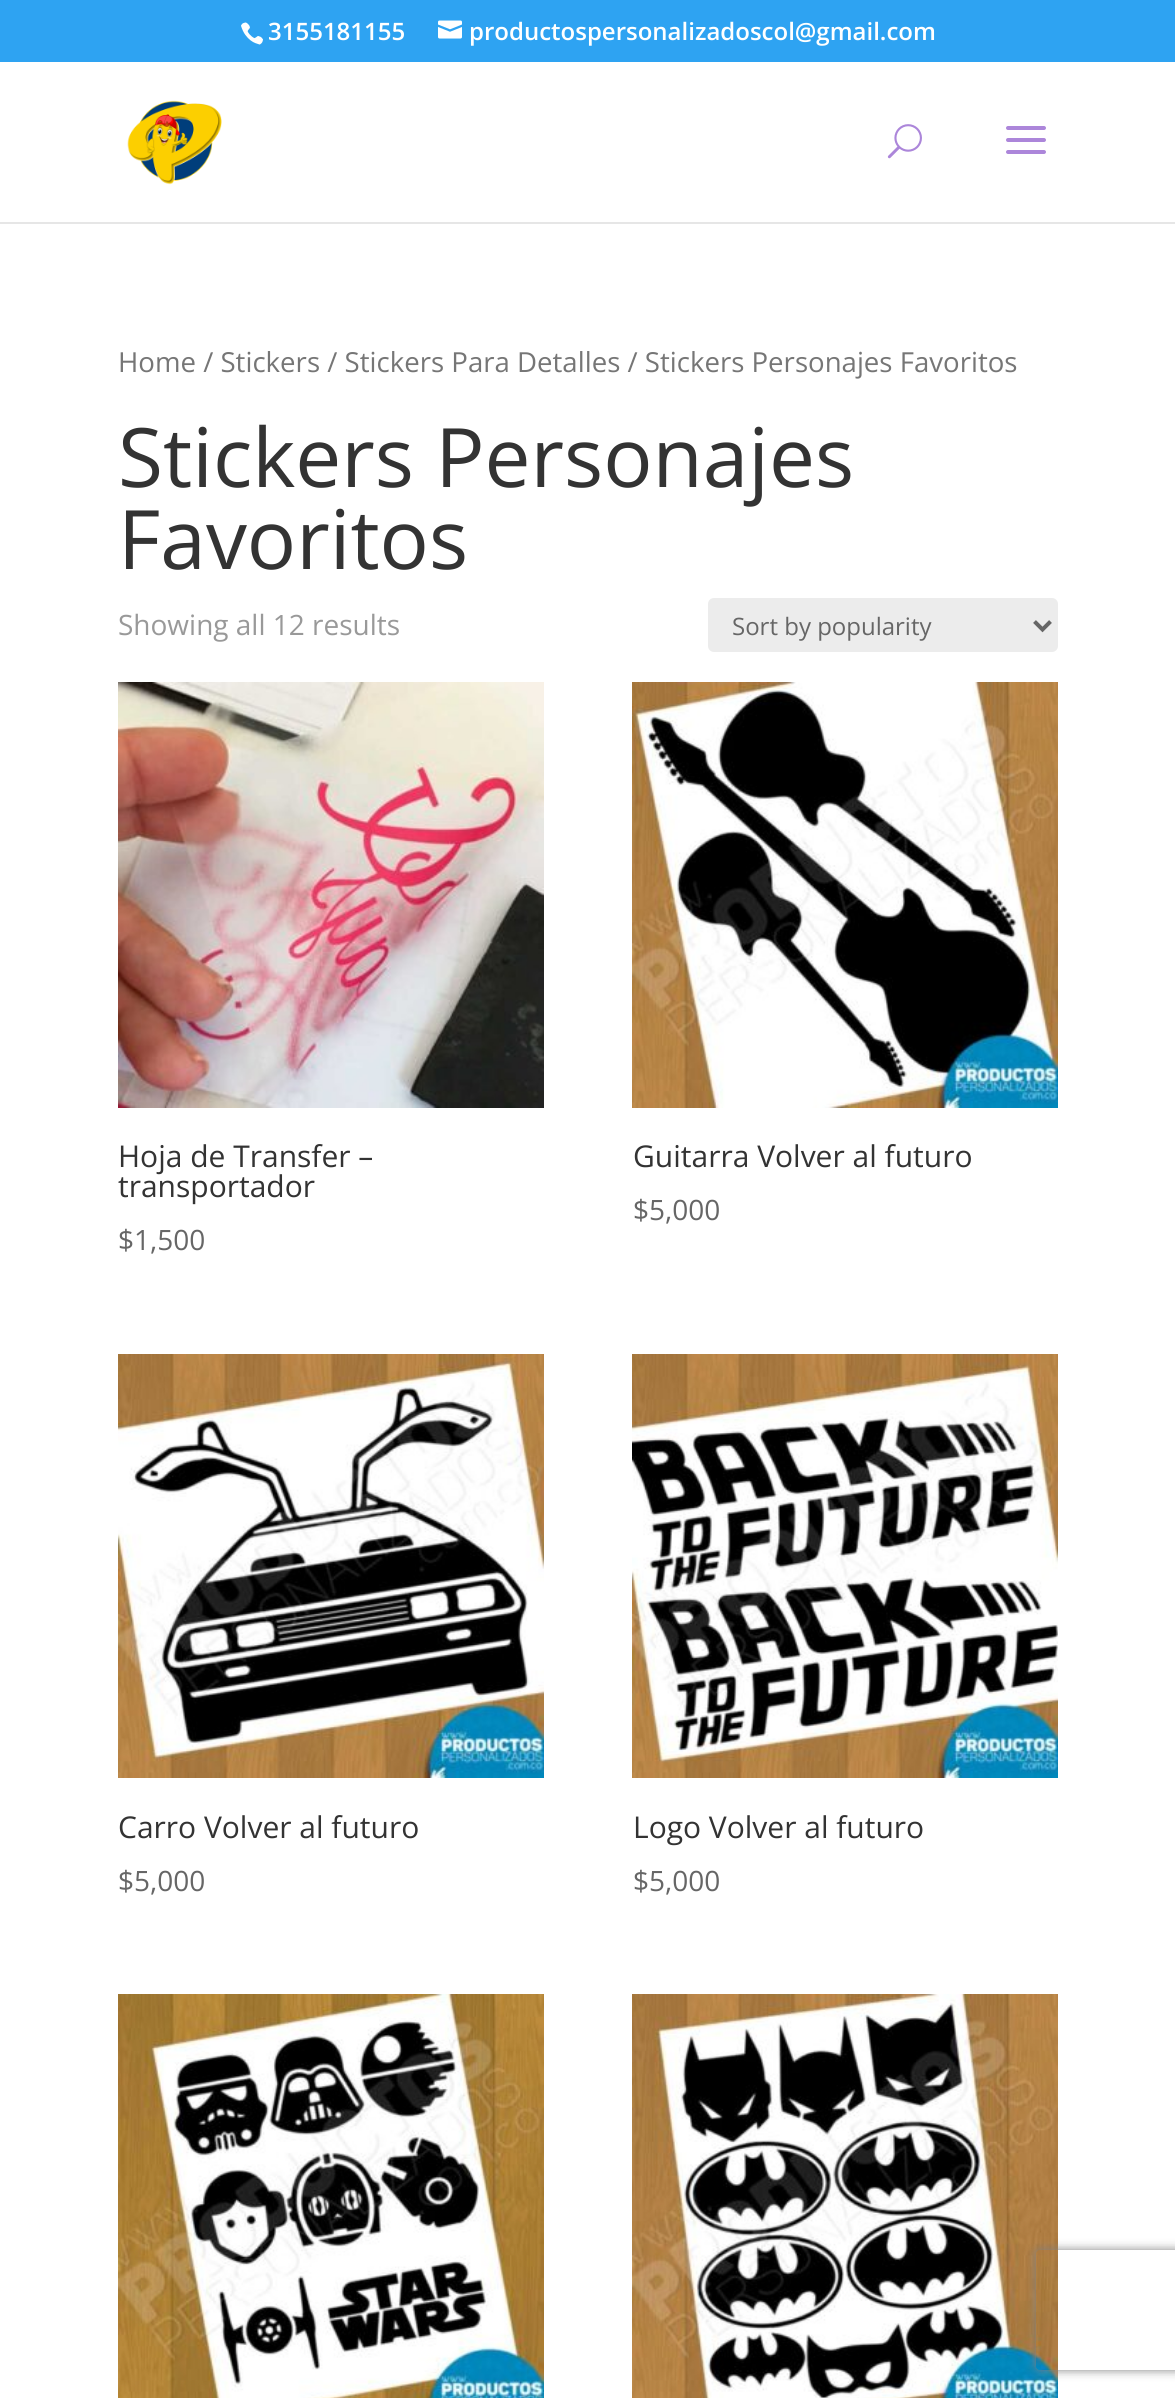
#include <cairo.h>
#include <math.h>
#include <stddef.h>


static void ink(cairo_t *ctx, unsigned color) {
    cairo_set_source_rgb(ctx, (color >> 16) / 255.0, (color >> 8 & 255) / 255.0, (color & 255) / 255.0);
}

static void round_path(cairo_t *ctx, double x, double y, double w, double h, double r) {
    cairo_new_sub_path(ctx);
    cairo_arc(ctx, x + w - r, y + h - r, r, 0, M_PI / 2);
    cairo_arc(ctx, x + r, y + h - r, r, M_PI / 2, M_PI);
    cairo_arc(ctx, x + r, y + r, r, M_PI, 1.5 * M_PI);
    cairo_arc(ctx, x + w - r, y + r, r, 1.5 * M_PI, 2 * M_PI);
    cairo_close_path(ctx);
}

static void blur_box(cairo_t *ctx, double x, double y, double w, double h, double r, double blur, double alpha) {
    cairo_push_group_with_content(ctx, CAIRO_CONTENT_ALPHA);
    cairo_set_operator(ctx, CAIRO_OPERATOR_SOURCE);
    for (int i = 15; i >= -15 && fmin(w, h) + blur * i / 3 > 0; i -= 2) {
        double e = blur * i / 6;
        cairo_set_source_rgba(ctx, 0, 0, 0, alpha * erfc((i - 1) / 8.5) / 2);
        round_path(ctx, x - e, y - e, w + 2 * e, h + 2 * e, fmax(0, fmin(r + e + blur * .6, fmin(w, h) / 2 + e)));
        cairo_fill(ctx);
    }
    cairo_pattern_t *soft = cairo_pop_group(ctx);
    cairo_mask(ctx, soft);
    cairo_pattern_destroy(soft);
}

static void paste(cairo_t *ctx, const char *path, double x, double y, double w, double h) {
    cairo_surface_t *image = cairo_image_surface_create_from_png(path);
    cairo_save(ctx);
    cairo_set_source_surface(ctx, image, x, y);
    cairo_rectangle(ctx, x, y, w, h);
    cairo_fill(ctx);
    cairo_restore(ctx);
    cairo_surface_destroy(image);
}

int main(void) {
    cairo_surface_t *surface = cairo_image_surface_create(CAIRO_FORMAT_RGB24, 1175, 2398);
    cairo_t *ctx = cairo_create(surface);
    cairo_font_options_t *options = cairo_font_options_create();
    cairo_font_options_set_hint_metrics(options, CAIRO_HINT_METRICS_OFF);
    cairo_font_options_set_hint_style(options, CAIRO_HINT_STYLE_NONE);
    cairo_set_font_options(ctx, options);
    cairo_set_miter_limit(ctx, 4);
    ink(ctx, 0xFFFFFF);
    cairo_paint(ctx);
    ink(ctx, 0x2EA3F2);
    cairo_rectangle(ctx, 0, 0, 1175, 62);
    cairo_fill(ctx);
    paste(ctx, "media/1.png", 241, 22, 22, 23);
    cairo_select_font_face(ctx, "Open Sans SemiBold", CAIRO_FONT_SLANT_NORMAL, CAIRO_FONT_WEIGHT_NORMAL);
    cairo_set_font_size(ctx, 24);
    ink(ctx, 0xFFFFFF);
    cairo_move_to(ctx, 268, 40);
    cairo_show_text(ctx, "3155181155");
    paste(ctx, "media/2.png", 438, 20, 24, 19);
    cairo_move_to(ctx, 469, 40);
    cairo_show_text(ctx, "productospersonalizadoscol@gmail.com");
    ink(ctx, 0xE6E6E6);
    cairo_rectangle(ctx, 0, 222, 1175, 2);
    cairo_fill(ctx);
    paste(ctx, "media/3.png", 127, 100, 95, 85);
    paste(ctx, "media/4.png", 887, 124, 35, 35);
    paste(ctx, "media/5.png", 1006, 126, 40, 28);
    cairo_select_font_face(ctx, "Open Sans", CAIRO_FONT_SLANT_NORMAL, CAIRO_FONT_WEIGHT_NORMAL);
    cairo_set_font_size(ctx, 27.6);
    ink(ctx, 0x767676);
    cairo_move_to(ctx, 118, 372);
    cairo_show_text(ctx, "Home / Stickers / Stickers Para Detalles / Stickers Personajes Favoritos");
    cairo_set_font_size(ctx, 82);
    ink(ctx, 0x333333);
    cairo_move_to(ctx, 118, 487);
    cairo_show_text(ctx, "Stickers Personajes");
    cairo_move_to(ctx, 118, 569);
    cairo_show_text(ctx, "Favoritos");
    cairo_set_font_size(ctx, 28);
    ink(ctx, 0x999999);
    cairo_move_to(ctx, 118, 635);
    cairo_show_text(ctx, "Showing all 12 results");
    ink(ctx, 0xECECEC);
    round_path(ctx, 708, 598, 350, 54, 6);
    cairo_fill(ctx);
    cairo_new_path(ctx);
    cairo_move_to(ctx, 1034.5, 621.5);
    cairo_line_to(ctx, 1042.5, 629.5);
    cairo_line_to(ctx, 1050.5, 621.5);
    ink(ctx, 0x666666);
    cairo_set_line_width(ctx, 4);
    cairo_stroke(ctx);
    cairo_set_font_size(ctx, 24);
    cairo_move_to(ctx, 732, 635);
    cairo_show_text(ctx, "Sort by popularity");
    paste(ctx, "media/6.png", 118, 682, 426, 426);
    cairo_set_font_size(ctx, 30);
    ink(ctx, 0x333333);
    cairo_move_to(ctx, 118, 1167);
    cairo_show_text(ctx, "Hoja de Transfer –");
    cairo_move_to(ctx, 118, 1197);
    cairo_show_text(ctx, "transportador");
    cairo_set_font_size(ctx, 28);
    ink(ctx, 0x666666);
    cairo_move_to(ctx, 118, 1250);
    cairo_show_text(ctx, "$1,500");
    paste(ctx, "media/7.png", 632, 682, 426, 426);
    cairo_set_font_size(ctx, 30);
    ink(ctx, 0x333333);
    cairo_move_to(ctx, 633, 1167);
    cairo_show_text(ctx, "Guitarra Volver al futuro");
    cairo_set_font_size(ctx, 28);
    ink(ctx, 0x666666);
    cairo_move_to(ctx, 633, 1220);
    cairo_show_text(ctx, "$5,000");
    paste(ctx, "media/8.png", 118, 1354, 426, 424);
    cairo_set_font_size(ctx, 30);
    ink(ctx, 0x333333);
    cairo_move_to(ctx, 118, 1838);
    cairo_show_text(ctx, "Carro Volver al futuro");
    cairo_set_font_size(ctx, 28);
    ink(ctx, 0x666666);
    cairo_move_to(ctx, 118, 1891);
    cairo_show_text(ctx, "$5,000");
    paste(ctx, "media/9.png", 632, 1354, 426, 424);
    cairo_set_font_size(ctx, 30);
    ink(ctx, 0x333333);
    cairo_move_to(ctx, 633, 1838);
    cairo_show_text(ctx, "Logo Volver al futuro");
    cairo_set_font_size(ctx, 28);
    ink(ctx, 0x666666);
    cairo_move_to(ctx, 633, 1891);
    cairo_show_text(ctx, "$5,000");
    paste(ctx, "media/10.png", 118, 1994, 426, 404);
    paste(ctx, "media/11.png", 632, 1994, 426, 404);
    cairo_save(ctx);
    cairo_set_fill_rule(ctx, CAIRO_FILL_RULE_EVEN_ODD);
    cairo_new_path(ctx);
    cairo_move_to(ctx, 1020, 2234);
    cairo_line_to(ctx, 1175, 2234);
    cairo_line_to(ctx, 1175, 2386);
    cairo_line_to(ctx, 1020, 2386);
    cairo_close_path(ctx);
    cairo_move_to(ctx, 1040, 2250);
    cairo_line_to(ctx, 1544, 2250);
    cairo_curve_to(ctx, 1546, 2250, 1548, 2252, 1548, 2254);
    cairo_line_to(ctx, 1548, 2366);
    cairo_curve_to(ctx, 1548, 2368, 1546, 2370, 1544, 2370);
    cairo_line_to(ctx, 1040, 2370);
    cairo_curve_to(ctx, 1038, 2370, 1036, 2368, 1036, 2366);
    cairo_line_to(ctx, 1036, 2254);
    cairo_curve_to(ctx, 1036, 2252, 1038, 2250, 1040, 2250);
    cairo_close_path(ctx);
    cairo_clip(ctx);
    ink(ctx, 0x808080);
    blur_box(ctx, 1036, 2250, 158, 120, 4, 5, 1);
    cairo_restore(ctx);
    cairo_surface_write_to_png(surface, "image.png");
    cairo_font_options_destroy(options);
    cairo_destroy(ctx);
    cairo_surface_destroy(surface);
    return 0;
}
